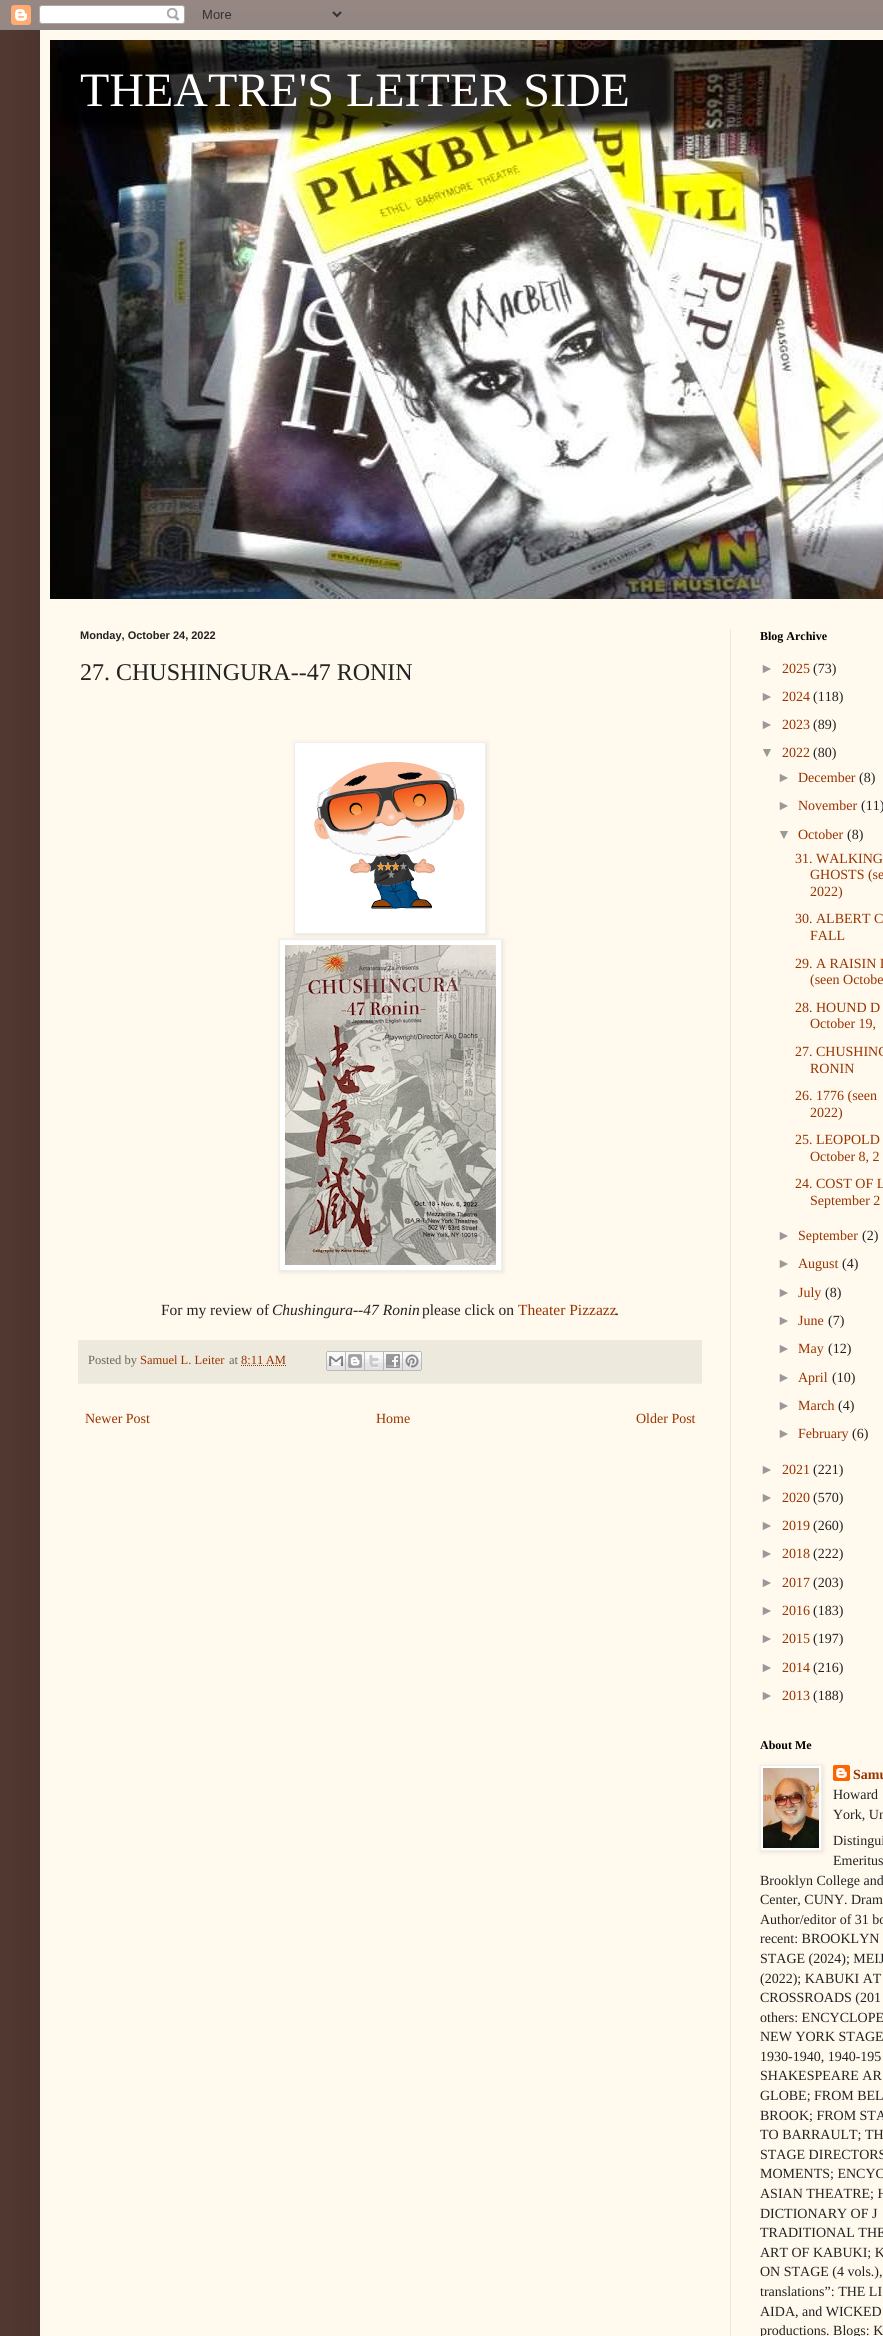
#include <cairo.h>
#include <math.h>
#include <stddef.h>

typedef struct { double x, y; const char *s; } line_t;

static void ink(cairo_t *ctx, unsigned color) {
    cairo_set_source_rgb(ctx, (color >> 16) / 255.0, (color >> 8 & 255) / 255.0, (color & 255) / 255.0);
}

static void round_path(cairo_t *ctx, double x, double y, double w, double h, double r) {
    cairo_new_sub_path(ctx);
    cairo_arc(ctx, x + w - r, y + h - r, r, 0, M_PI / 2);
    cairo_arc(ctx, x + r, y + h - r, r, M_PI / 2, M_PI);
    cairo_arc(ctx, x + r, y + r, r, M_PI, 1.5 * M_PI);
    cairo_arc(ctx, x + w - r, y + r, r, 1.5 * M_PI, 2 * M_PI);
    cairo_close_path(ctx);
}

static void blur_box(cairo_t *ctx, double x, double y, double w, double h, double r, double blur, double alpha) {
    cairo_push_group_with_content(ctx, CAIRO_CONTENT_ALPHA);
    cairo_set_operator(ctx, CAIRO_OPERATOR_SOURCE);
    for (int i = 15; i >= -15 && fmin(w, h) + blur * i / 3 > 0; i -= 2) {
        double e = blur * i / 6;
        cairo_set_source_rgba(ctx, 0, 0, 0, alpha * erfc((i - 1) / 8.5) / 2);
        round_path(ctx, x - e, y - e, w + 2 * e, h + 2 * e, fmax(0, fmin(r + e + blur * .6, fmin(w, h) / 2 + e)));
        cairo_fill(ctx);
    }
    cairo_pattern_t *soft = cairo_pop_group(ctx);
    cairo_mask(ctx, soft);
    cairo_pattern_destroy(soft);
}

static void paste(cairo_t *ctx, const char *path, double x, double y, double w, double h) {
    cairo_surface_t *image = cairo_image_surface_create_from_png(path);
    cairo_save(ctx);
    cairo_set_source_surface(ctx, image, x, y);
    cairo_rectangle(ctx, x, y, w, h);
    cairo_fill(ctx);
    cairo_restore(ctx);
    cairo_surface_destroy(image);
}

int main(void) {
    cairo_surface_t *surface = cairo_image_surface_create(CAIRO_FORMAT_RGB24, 883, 2336);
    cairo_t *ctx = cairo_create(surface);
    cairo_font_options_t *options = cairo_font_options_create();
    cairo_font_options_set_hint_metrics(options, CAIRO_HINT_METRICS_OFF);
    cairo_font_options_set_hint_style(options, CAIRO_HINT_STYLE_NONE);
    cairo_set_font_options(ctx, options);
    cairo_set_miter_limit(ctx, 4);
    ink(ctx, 0x513831);
    cairo_paint(ctx);
    ink(ctx, 0x000000);
    blur_box(ctx, 40, 30, 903, 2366, 0, 20, 0.15);
    paste(ctx, "media/1.png", 0, 0, 883, 30);
    ink(ctx, 0xFFF9EE);
    cairo_rectangle(ctx, 40, 30, 843, 2306);
    cairo_fill(ctx);
    paste(ctx, "media/2.png", 50, 40, 833, 559);
    cairo_select_font_face(ctx, "Liberation Serif", CAIRO_FONT_SLANT_NORMAL, CAIRO_FONT_WEIGHT_NORMAL);
    cairo_set_font_size(ctx, 48);
    ink(ctx, 0xFFFFFF);
    cairo_move_to(ctx, 80, 106);
    cairo_show_text(ctx, "THEATRE'S LEITER SIDE");
    ink(ctx, 0xEEE5DD);
    cairo_rectangle(ctx, 730, 629, 1, 1707);
    cairo_fill(ctx);
    cairo_select_font_face(ctx, "Liberation Sans", CAIRO_FONT_SLANT_NORMAL, CAIRO_FONT_WEIGHT_BOLD);
    cairo_set_font_size(ctx, 11);
    ink(ctx, 0x222222);
    cairo_move_to(ctx, 80, 639);
    cairo_show_text(ctx, "Monday, October 24, 2022");
    cairo_select_font_face(ctx, "Liberation Serif", CAIRO_FONT_SLANT_NORMAL, CAIRO_FONT_WEIGHT_NORMAL);
    cairo_set_font_size(ctx, 24);
    cairo_move_to(ctx, 80, 680);
    cairo_show_text(ctx, "27. CHUSHINGURA--47 RONIN");
    ink(ctx, 0x000000);
    blur_box(ctx, 295, 743, 192, 192, 0, 2.5, 0.1);
    ink(ctx, 0xFFFFFF);
    cairo_rectangle(ctx, 294.5, 742.5, 191, 191);
    cairo_fill_preserve(ctx);
    ink(ctx, 0xEEEEEE);
    cairo_set_line_width(ctx, 1);
    cairo_stroke(ctx);
    paste(ctx, "media/3.png", 314, 761, 151, 148);
    ink(ctx, 0x000000);
    blur_box(ctx, 280, 940, 223, 332, 0, 2.5, 0.1);
    ink(ctx, 0xFFFFFF);
    cairo_rectangle(ctx, 279.5, 939.5, 222, 331);
    cairo_fill_preserve(ctx);
    ink(ctx, 0xEEEEEE);
    cairo_stroke(ctx);
    paste(ctx, "media/4.png", 285, 945, 211, 320);
    cairo_set_font_size(ctx, 15.5);
    ink(ctx, 0x222222);
    cairo_move_to(ctx, 161, 1315);
    cairo_show_text(ctx, "For my review of");
    cairo_select_font_face(ctx, "Liberation Serif", CAIRO_FONT_SLANT_ITALIC, CAIRO_FONT_WEIGHT_NORMAL);
    cairo_move_to(ctx, 272, 1315);
    cairo_show_text(ctx, "Chushingura--47 Ronin");
    cairo_select_font_face(ctx, "Liberation Serif", CAIRO_FONT_SLANT_NORMAL, CAIRO_FONT_WEIGHT_NORMAL);
    cairo_move_to(ctx, 422, 1315);
    cairo_show_text(ctx, "please click on");
    ink(ctx, 0x993300);
    cairo_move_to(ctx, 518, 1315);
    cairo_show_text(ctx, "Theater Pizzazz");
    ink(ctx, 0x222222);
    cairo_move_to(ctx, 615, 1315);
    cairo_show_text(ctx, ".");
    ink(ctx, 0xEEE9DD);
    cairo_rectangle(ctx, 78, 1340, 624, 43);
    cairo_fill(ctx);
    ink(ctx, 0xEEEEEE);
    cairo_rectangle(ctx, 78, 1383, 624, 1);
    cairo_fill(ctx);
    cairo_set_font_size(ctx, 12.5);
    ink(ctx, 0x666555);
    cairo_move_to(ctx, 88, 1364);
    cairo_show_text(ctx, "Posted by");
    ink(ctx, 0x993300);
    cairo_move_to(ctx, 140, 1364);
    cairo_show_text(ctx, "Samuel L. Leiter");
    ink(ctx, 0x666555);
    cairo_move_to(ctx, 229, 1364);
    cairo_show_text(ctx, "at");
    ink(ctx, 0x993300);
    cairo_move_to(ctx, 241, 1364);
    cairo_show_text(ctx, "8:11 AM");
    cairo_new_path(ctx);
    cairo_move_to(ctx, 241, 1365.5);
    cairo_line_to(ctx, 286, 1365.5);
    cairo_set_dash(ctx, (double[]){1, 1}, 2, 0);
    cairo_stroke(ctx);
    paste(ctx, "media/5.png", 326, 1351, 20, 20);
    paste(ctx, "media/6.png", 346, 1351, 19, 20);
    paste(ctx, "media/7.png", 365, 1351, 19, 20);
    paste(ctx, "media/8.png", 384, 1351, 19, 20);
    paste(ctx, "media/9.png", 403, 1351, 19, 20);
    cairo_set_font_size(ctx, 14);
    {
        static const line_t items[] = {
            {85, 1423, "Newer Post"},
            {376, 1423, "Home"},
            {636, 1423, "Older Post"},
        };
        for (size_t i = 0; i < sizeof items / sizeof *items; i++) {
            cairo_move_to(ctx, items[i].x, items[i].y);
            cairo_show_text(ctx, items[i].s);
        }
    }
    cairo_select_font_face(ctx, "Liberation Serif", CAIRO_FONT_SLANT_NORMAL, CAIRO_FONT_WEIGHT_BOLD);
    cairo_set_font_size(ctx, 12);
    ink(ctx, 0x000000);
    cairo_move_to(ctx, 760, 640);
    cairo_show_text(ctx, "Blog Archive");
    cairo_select_font_face(ctx, "Liberation Sans", CAIRO_FONT_SLANT_NORMAL, CAIRO_FONT_WEIGHT_NORMAL);
    cairo_set_font_size(ctx, 14);
    ink(ctx, 0x999999);
    cairo_move_to(ctx, 760, 673);
    cairo_show_text(ctx, "►");
    cairo_select_font_face(ctx, "Liberation Serif", CAIRO_FONT_SLANT_NORMAL, CAIRO_FONT_WEIGHT_NORMAL);
    ink(ctx, 0x993300);
    cairo_move_to(ctx, 782, 673);
    cairo_show_text(ctx, "2025");
    ink(ctx, 0x222222);
    cairo_move_to(ctx, 813, 673);
    cairo_show_text(ctx, "(73)");
    cairo_select_font_face(ctx, "Liberation Sans", CAIRO_FONT_SLANT_NORMAL, CAIRO_FONT_WEIGHT_NORMAL);
    ink(ctx, 0x999999);
    cairo_move_to(ctx, 760, 701);
    cairo_show_text(ctx, "►");
    cairo_select_font_face(ctx, "Liberation Serif", CAIRO_FONT_SLANT_NORMAL, CAIRO_FONT_WEIGHT_NORMAL);
    ink(ctx, 0x993300);
    cairo_move_to(ctx, 782, 701);
    cairo_show_text(ctx, "2024");
    ink(ctx, 0x222222);
    cairo_move_to(ctx, 813, 701);
    cairo_show_text(ctx, "(118)");
    cairo_select_font_face(ctx, "Liberation Sans", CAIRO_FONT_SLANT_NORMAL, CAIRO_FONT_WEIGHT_NORMAL);
    ink(ctx, 0x999999);
    cairo_move_to(ctx, 760, 729);
    cairo_show_text(ctx, "►");
    cairo_select_font_face(ctx, "Liberation Serif", CAIRO_FONT_SLANT_NORMAL, CAIRO_FONT_WEIGHT_NORMAL);
    ink(ctx, 0x993300);
    cairo_move_to(ctx, 782, 729);
    cairo_show_text(ctx, "2023");
    ink(ctx, 0x222222);
    cairo_move_to(ctx, 813, 729);
    cairo_show_text(ctx, "(89)");
    cairo_select_font_face(ctx, "Liberation Sans", CAIRO_FONT_SLANT_NORMAL, CAIRO_FONT_WEIGHT_NORMAL);
    ink(ctx, 0x999999);
    cairo_move_to(ctx, 760, 757);
    cairo_show_text(ctx, "▼");
    cairo_select_font_face(ctx, "Liberation Serif", CAIRO_FONT_SLANT_NORMAL, CAIRO_FONT_WEIGHT_NORMAL);
    ink(ctx, 0x993300);
    cairo_move_to(ctx, 782, 757);
    cairo_show_text(ctx, "2022");
    ink(ctx, 0x222222);
    cairo_move_to(ctx, 813, 757);
    cairo_show_text(ctx, "(80)");
    cairo_select_font_face(ctx, "Liberation Sans", CAIRO_FONT_SLANT_NORMAL, CAIRO_FONT_WEIGHT_NORMAL);
    ink(ctx, 0x999999);
    cairo_move_to(ctx, 777, 782);
    cairo_show_text(ctx, "►");
    cairo_select_font_face(ctx, "Liberation Serif", CAIRO_FONT_SLANT_NORMAL, CAIRO_FONT_WEIGHT_NORMAL);
    ink(ctx, 0x993300);
    cairo_move_to(ctx, 798, 782);
    cairo_show_text(ctx, "December");
    ink(ctx, 0x222222);
    cairo_move_to(ctx, 859, 782);
    cairo_show_text(ctx, "(8)");
    cairo_select_font_face(ctx, "Liberation Sans", CAIRO_FONT_SLANT_NORMAL, CAIRO_FONT_WEIGHT_NORMAL);
    ink(ctx, 0x999999);
    cairo_move_to(ctx, 777, 810);
    cairo_show_text(ctx, "►");
    cairo_select_font_face(ctx, "Liberation Serif", CAIRO_FONT_SLANT_NORMAL, CAIRO_FONT_WEIGHT_NORMAL);
    ink(ctx, 0x993300);
    cairo_move_to(ctx, 798, 810);
    cairo_show_text(ctx, "November");
    ink(ctx, 0x222222);
    cairo_move_to(ctx, 861, 810);
    cairo_show_text(ctx, "(11)");
    cairo_select_font_face(ctx, "Liberation Sans", CAIRO_FONT_SLANT_NORMAL, CAIRO_FONT_WEIGHT_NORMAL);
    ink(ctx, 0x999999);
    cairo_move_to(ctx, 777, 839);
    cairo_show_text(ctx, "▼");
    cairo_select_font_face(ctx, "Liberation Serif", CAIRO_FONT_SLANT_NORMAL, CAIRO_FONT_WEIGHT_NORMAL);
    ink(ctx, 0x993300);
    cairo_move_to(ctx, 798, 839);
    cairo_show_text(ctx, "October");
    ink(ctx, 0x222222);
    cairo_move_to(ctx, 847, 839);
    cairo_show_text(ctx, "(8)");
    ink(ctx, 0x993300);
    {
        static const line_t items[] = {
            {795, 863, "31. WALKING"},
            {810, 879, "GHOSTS (se"},
            {810, 896, "2022)"},
            {795, 923, "30. ALBERT C"},
            {810, 940, "FALL"},
            {795, 968, "29. A RAISIN I"},
            {810, 984, "(seen Octobe"},
            {795, 1012, "28. HOUND D"},
            {810, 1028, "October 19,"},
            {795, 1056, "27. CHUSHING"},
            {810, 1073, "RONIN"},
            {795, 1100, "26. 1776 (seen"},
            {810, 1117, "2022)"},
            {795, 1144, "25. LEOPOLD"},
            {810, 1161, "October 8, 2"},
            {795, 1188, "24. COST OF L"},
            {810, 1205, "September 2"},
        };
        for (size_t i = 0; i < sizeof items / sizeof *items; i++) {
            cairo_move_to(ctx, items[i].x, items[i].y);
            cairo_show_text(ctx, items[i].s);
        }
    }
    cairo_select_font_face(ctx, "Liberation Sans", CAIRO_FONT_SLANT_NORMAL, CAIRO_FONT_WEIGHT_NORMAL);
    ink(ctx, 0x999999);
    cairo_move_to(ctx, 777, 1240);
    cairo_show_text(ctx, "►");
    cairo_select_font_face(ctx, "Liberation Serif", CAIRO_FONT_SLANT_NORMAL, CAIRO_FONT_WEIGHT_NORMAL);
    ink(ctx, 0x993300);
    cairo_move_to(ctx, 798, 1240);
    cairo_show_text(ctx, "September");
    ink(ctx, 0x222222);
    cairo_move_to(ctx, 862, 1240);
    cairo_show_text(ctx, "(2)");
    cairo_select_font_face(ctx, "Liberation Sans", CAIRO_FONT_SLANT_NORMAL, CAIRO_FONT_WEIGHT_NORMAL);
    ink(ctx, 0x999999);
    cairo_move_to(ctx, 777, 1268);
    cairo_show_text(ctx, "►");
    cairo_select_font_face(ctx, "Liberation Serif", CAIRO_FONT_SLANT_NORMAL, CAIRO_FONT_WEIGHT_NORMAL);
    ink(ctx, 0x993300);
    cairo_move_to(ctx, 798, 1268);
    cairo_show_text(ctx, "August");
    ink(ctx, 0x222222);
    cairo_move_to(ctx, 842, 1268);
    cairo_show_text(ctx, "(4)");
    cairo_select_font_face(ctx, "Liberation Sans", CAIRO_FONT_SLANT_NORMAL, CAIRO_FONT_WEIGHT_NORMAL);
    ink(ctx, 0x999999);
    cairo_move_to(ctx, 777, 1297);
    cairo_show_text(ctx, "►");
    cairo_select_font_face(ctx, "Liberation Serif", CAIRO_FONT_SLANT_NORMAL, CAIRO_FONT_WEIGHT_NORMAL);
    ink(ctx, 0x993300);
    cairo_move_to(ctx, 798, 1297);
    cairo_show_text(ctx, "July");
    ink(ctx, 0x222222);
    cairo_move_to(ctx, 825, 1297);
    cairo_show_text(ctx, "(8)");
    cairo_select_font_face(ctx, "Liberation Sans", CAIRO_FONT_SLANT_NORMAL, CAIRO_FONT_WEIGHT_NORMAL);
    ink(ctx, 0x999999);
    cairo_move_to(ctx, 777, 1325);
    cairo_show_text(ctx, "►");
    cairo_select_font_face(ctx, "Liberation Serif", CAIRO_FONT_SLANT_NORMAL, CAIRO_FONT_WEIGHT_NORMAL);
    ink(ctx, 0x993300);
    cairo_move_to(ctx, 798, 1325);
    cairo_show_text(ctx, "June");
    ink(ctx, 0x222222);
    cairo_move_to(ctx, 828, 1325);
    cairo_show_text(ctx, "(7)");
    cairo_select_font_face(ctx, "Liberation Sans", CAIRO_FONT_SLANT_NORMAL, CAIRO_FONT_WEIGHT_NORMAL);
    ink(ctx, 0x999999);
    cairo_move_to(ctx, 777, 1353);
    cairo_show_text(ctx, "►");
    cairo_select_font_face(ctx, "Liberation Serif", CAIRO_FONT_SLANT_NORMAL, CAIRO_FONT_WEIGHT_NORMAL);
    ink(ctx, 0x993300);
    cairo_move_to(ctx, 798, 1353);
    cairo_show_text(ctx, "May");
    ink(ctx, 0x222222);
    cairo_move_to(ctx, 828, 1353);
    cairo_show_text(ctx, "(12)");
    cairo_select_font_face(ctx, "Liberation Sans", CAIRO_FONT_SLANT_NORMAL, CAIRO_FONT_WEIGHT_NORMAL);
    ink(ctx, 0x999999);
    cairo_move_to(ctx, 777, 1382);
    cairo_show_text(ctx, "►");
    cairo_select_font_face(ctx, "Liberation Serif", CAIRO_FONT_SLANT_NORMAL, CAIRO_FONT_WEIGHT_NORMAL);
    ink(ctx, 0x993300);
    cairo_move_to(ctx, 798, 1382);
    cairo_show_text(ctx, "April");
    ink(ctx, 0x222222);
    cairo_move_to(ctx, 832, 1382);
    cairo_show_text(ctx, "(10)");
    cairo_select_font_face(ctx, "Liberation Sans", CAIRO_FONT_SLANT_NORMAL, CAIRO_FONT_WEIGHT_NORMAL);
    ink(ctx, 0x999999);
    cairo_move_to(ctx, 777, 1410);
    cairo_show_text(ctx, "►");
    cairo_select_font_face(ctx, "Liberation Serif", CAIRO_FONT_SLANT_NORMAL, CAIRO_FONT_WEIGHT_NORMAL);
    ink(ctx, 0x993300);
    cairo_move_to(ctx, 798, 1410);
    cairo_show_text(ctx, "March");
    ink(ctx, 0x222222);
    cairo_move_to(ctx, 838, 1410);
    cairo_show_text(ctx, "(4)");
    cairo_select_font_face(ctx, "Liberation Sans", CAIRO_FONT_SLANT_NORMAL, CAIRO_FONT_WEIGHT_NORMAL);
    ink(ctx, 0x999999);
    cairo_move_to(ctx, 777, 1438);
    cairo_show_text(ctx, "►");
    cairo_select_font_face(ctx, "Liberation Serif", CAIRO_FONT_SLANT_NORMAL, CAIRO_FONT_WEIGHT_NORMAL);
    ink(ctx, 0x993300);
    cairo_move_to(ctx, 798, 1438);
    cairo_show_text(ctx, "February");
    ink(ctx, 0x222222);
    cairo_move_to(ctx, 852, 1438);
    cairo_show_text(ctx, "(6)");
    cairo_select_font_face(ctx, "Liberation Sans", CAIRO_FONT_SLANT_NORMAL, CAIRO_FONT_WEIGHT_NORMAL);
    ink(ctx, 0x999999);
    cairo_move_to(ctx, 760, 1474);
    cairo_show_text(ctx, "►");
    cairo_select_font_face(ctx, "Liberation Serif", CAIRO_FONT_SLANT_NORMAL, CAIRO_FONT_WEIGHT_NORMAL);
    ink(ctx, 0x993300);
    cairo_move_to(ctx, 782, 1474);
    cairo_show_text(ctx, "2021");
    ink(ctx, 0x222222);
    cairo_move_to(ctx, 813, 1474);
    cairo_show_text(ctx, "(221)");
    cairo_select_font_face(ctx, "Liberation Sans", CAIRO_FONT_SLANT_NORMAL, CAIRO_FONT_WEIGHT_NORMAL);
    ink(ctx, 0x999999);
    cairo_move_to(ctx, 760, 1502);
    cairo_show_text(ctx, "►");
    cairo_select_font_face(ctx, "Liberation Serif", CAIRO_FONT_SLANT_NORMAL, CAIRO_FONT_WEIGHT_NORMAL);
    ink(ctx, 0x993300);
    cairo_move_to(ctx, 782, 1502);
    cairo_show_text(ctx, "2020");
    ink(ctx, 0x222222);
    cairo_move_to(ctx, 813, 1502);
    cairo_show_text(ctx, "(570)");
    cairo_select_font_face(ctx, "Liberation Sans", CAIRO_FONT_SLANT_NORMAL, CAIRO_FONT_WEIGHT_NORMAL);
    ink(ctx, 0x999999);
    cairo_move_to(ctx, 760, 1530);
    cairo_show_text(ctx, "►");
    cairo_select_font_face(ctx, "Liberation Serif", CAIRO_FONT_SLANT_NORMAL, CAIRO_FONT_WEIGHT_NORMAL);
    ink(ctx, 0x993300);
    cairo_move_to(ctx, 782, 1530);
    cairo_show_text(ctx, "2019");
    ink(ctx, 0x222222);
    cairo_move_to(ctx, 813, 1530);
    cairo_show_text(ctx, "(260)");
    cairo_select_font_face(ctx, "Liberation Sans", CAIRO_FONT_SLANT_NORMAL, CAIRO_FONT_WEIGHT_NORMAL);
    ink(ctx, 0x999999);
    cairo_move_to(ctx, 760, 1558);
    cairo_show_text(ctx, "►");
    cairo_select_font_face(ctx, "Liberation Serif", CAIRO_FONT_SLANT_NORMAL, CAIRO_FONT_WEIGHT_NORMAL);
    ink(ctx, 0x993300);
    cairo_move_to(ctx, 782, 1558);
    cairo_show_text(ctx, "2018");
    ink(ctx, 0x222222);
    cairo_move_to(ctx, 813, 1558);
    cairo_show_text(ctx, "(222)");
    cairo_select_font_face(ctx, "Liberation Sans", CAIRO_FONT_SLANT_NORMAL, CAIRO_FONT_WEIGHT_NORMAL);
    ink(ctx, 0x999999);
    cairo_move_to(ctx, 760, 1587);
    cairo_show_text(ctx, "►");
    cairo_select_font_face(ctx, "Liberation Serif", CAIRO_FONT_SLANT_NORMAL, CAIRO_FONT_WEIGHT_NORMAL);
    ink(ctx, 0x993300);
    cairo_move_to(ctx, 782, 1587);
    cairo_show_text(ctx, "2017");
    ink(ctx, 0x222222);
    cairo_move_to(ctx, 813, 1587);
    cairo_show_text(ctx, "(203)");
    cairo_select_font_face(ctx, "Liberation Sans", CAIRO_FONT_SLANT_NORMAL, CAIRO_FONT_WEIGHT_NORMAL);
    ink(ctx, 0x999999);
    cairo_move_to(ctx, 760, 1615);
    cairo_show_text(ctx, "►");
    cairo_select_font_face(ctx, "Liberation Serif", CAIRO_FONT_SLANT_NORMAL, CAIRO_FONT_WEIGHT_NORMAL);
    ink(ctx, 0x993300);
    cairo_move_to(ctx, 782, 1615);
    cairo_show_text(ctx, "2016");
    ink(ctx, 0x222222);
    cairo_move_to(ctx, 813, 1615);
    cairo_show_text(ctx, "(183)");
    cairo_select_font_face(ctx, "Liberation Sans", CAIRO_FONT_SLANT_NORMAL, CAIRO_FONT_WEIGHT_NORMAL);
    ink(ctx, 0x999999);
    cairo_move_to(ctx, 760, 1643);
    cairo_show_text(ctx, "►");
    cairo_select_font_face(ctx, "Liberation Serif", CAIRO_FONT_SLANT_NORMAL, CAIRO_FONT_WEIGHT_NORMAL);
    ink(ctx, 0x993300);
    cairo_move_to(ctx, 782, 1643);
    cairo_show_text(ctx, "2015");
    ink(ctx, 0x222222);
    cairo_move_to(ctx, 813, 1643);
    cairo_show_text(ctx, "(197)");
    cairo_select_font_face(ctx, "Liberation Sans", CAIRO_FONT_SLANT_NORMAL, CAIRO_FONT_WEIGHT_NORMAL);
    ink(ctx, 0x999999);
    cairo_move_to(ctx, 760, 1672);
    cairo_show_text(ctx, "►");
    cairo_select_font_face(ctx, "Liberation Serif", CAIRO_FONT_SLANT_NORMAL, CAIRO_FONT_WEIGHT_NORMAL);
    ink(ctx, 0x993300);
    cairo_move_to(ctx, 782, 1672);
    cairo_show_text(ctx, "2014");
    ink(ctx, 0x222222);
    cairo_move_to(ctx, 813, 1672);
    cairo_show_text(ctx, "(216)");
    cairo_select_font_face(ctx, "Liberation Sans", CAIRO_FONT_SLANT_NORMAL, CAIRO_FONT_WEIGHT_NORMAL);
    ink(ctx, 0x999999);
    cairo_move_to(ctx, 760, 1700);
    cairo_show_text(ctx, "►");
    cairo_select_font_face(ctx, "Liberation Serif", CAIRO_FONT_SLANT_NORMAL, CAIRO_FONT_WEIGHT_NORMAL);
    ink(ctx, 0x993300);
    cairo_move_to(ctx, 782, 1700);
    cairo_show_text(ctx, "2013");
    ink(ctx, 0x222222);
    cairo_move_to(ctx, 813, 1700);
    cairo_show_text(ctx, "(188)");
    cairo_select_font_face(ctx, "Liberation Serif", CAIRO_FONT_SLANT_NORMAL, CAIRO_FONT_WEIGHT_BOLD);
    cairo_set_font_size(ctx, 12);
    ink(ctx, 0x000000);
    cairo_move_to(ctx, 760, 1749);
    cairo_show_text(ctx, "About Me");
    ink(ctx, 0x000000);
    blur_box(ctx, 761, 1766, 62, 86, 0, 2.5, 0.1);
    ink(ctx, 0xFFFFFF);
    cairo_rectangle(ctx, 760.5, 1765.5, 61, 85);
    cairo_fill_preserve(ctx);
    ink(ctx, 0xEEEEEE);
    cairo_set_dash(ctx, NULL, 0, 0);
    cairo_stroke(ctx);
    paste(ctx, "media/10.png", 763, 1768, 56, 80);
    paste(ctx, "media/11.png", 833, 1765, 17, 16);
    cairo_set_font_size(ctx, 14);
    ink(ctx, 0x993300);
    cairo_move_to(ctx, 853, 1779);
    cairo_show_text(ctx, "Samu");
    cairo_select_font_face(ctx, "Liberation Serif", CAIRO_FONT_SLANT_NORMAL, CAIRO_FONT_WEIGHT_NORMAL);
    ink(ctx, 0x222222);
    {
        static const line_t items[] = {
            {833, 1799, "Howard"},
            {833, 1819, "York, Un"},
            {833, 1845, "Distingui"},
            {833, 1865, "Emeritus"},
            {760, 1885, "Brooklyn College and"},
            {760, 1904, "Center, CUNY. Dram"},
            {760, 1924, "Author/editor of 31 bo"},
            {760, 1943, "recent: BROOKLYN"},
            {760, 1963, "STAGE (2024); MEIJ"},
            {760, 1983, "(2022); KABUKI AT"},
            {760, 2002, "CROSSROADS (201"},
            {760, 2022, "others: ENCYCLOPE"},
            {760, 2041, "NEW YORK STAGE"},
            {760, 2061, "1930-1940, 1940-195"},
            {760, 2080, "SHAKESPEARE AR"},
            {760, 2100, "GLOBE; FROM BEL"},
            {760, 2120, "BROOK; FROM STA"},
            {760, 2139, "TO BARRAULT; TH"},
            {760, 2159, "STAGE DIRECTORS"},
            {760, 2178, "MOMENTS; ENCYC"},
            {760, 2198, "ASIAN THEATRE; H"},
            {760, 2218, "DICTIONARY OF J"},
            {760, 2237, "TRADITIONAL THE"},
            {760, 2257, "ART OF KABUKI; K"},
            {760, 2276, "ON STAGE (4 vols.),"},
            {760, 2296, "translations”: THE LI"},
            {760, 2316, "AIDA, and WICKED"},
            {760, 2335, "productions. Blogs: K"},
        };
        for (size_t i = 0; i < sizeof items / sizeof *items; i++) {
            cairo_move_to(ctx, items[i].x, items[i].y);
            cairo_show_text(ctx, items[i].s);
        }
    }
    cairo_surface_write_to_png(surface, "image.png");
    cairo_font_options_destroy(options);
    cairo_destroy(ctx);
    cairo_surface_destroy(surface);
    return 0;
}
